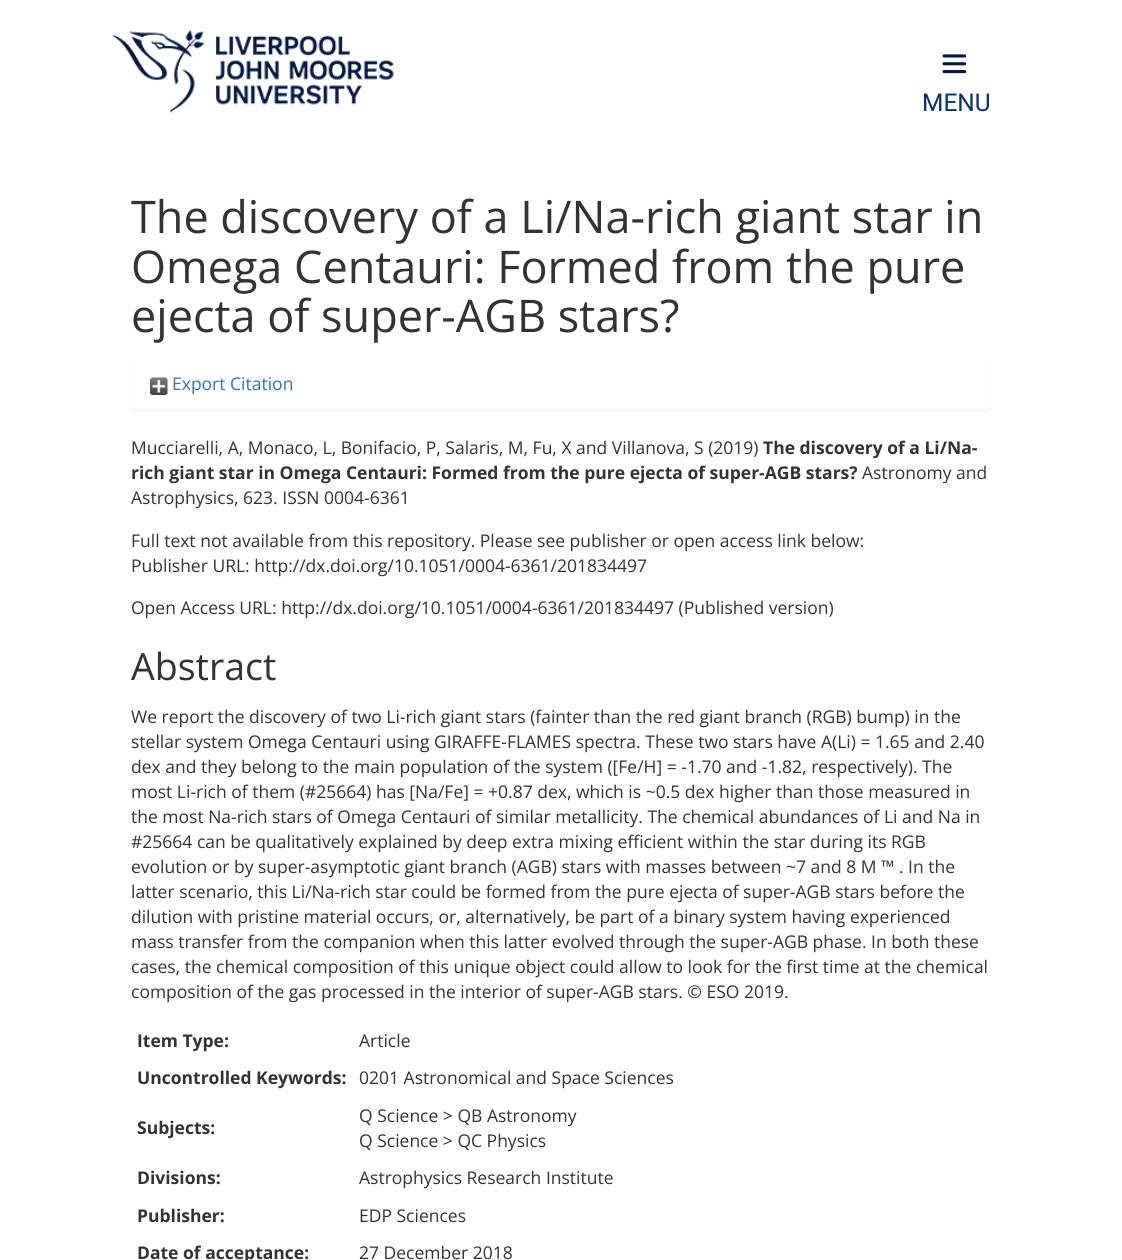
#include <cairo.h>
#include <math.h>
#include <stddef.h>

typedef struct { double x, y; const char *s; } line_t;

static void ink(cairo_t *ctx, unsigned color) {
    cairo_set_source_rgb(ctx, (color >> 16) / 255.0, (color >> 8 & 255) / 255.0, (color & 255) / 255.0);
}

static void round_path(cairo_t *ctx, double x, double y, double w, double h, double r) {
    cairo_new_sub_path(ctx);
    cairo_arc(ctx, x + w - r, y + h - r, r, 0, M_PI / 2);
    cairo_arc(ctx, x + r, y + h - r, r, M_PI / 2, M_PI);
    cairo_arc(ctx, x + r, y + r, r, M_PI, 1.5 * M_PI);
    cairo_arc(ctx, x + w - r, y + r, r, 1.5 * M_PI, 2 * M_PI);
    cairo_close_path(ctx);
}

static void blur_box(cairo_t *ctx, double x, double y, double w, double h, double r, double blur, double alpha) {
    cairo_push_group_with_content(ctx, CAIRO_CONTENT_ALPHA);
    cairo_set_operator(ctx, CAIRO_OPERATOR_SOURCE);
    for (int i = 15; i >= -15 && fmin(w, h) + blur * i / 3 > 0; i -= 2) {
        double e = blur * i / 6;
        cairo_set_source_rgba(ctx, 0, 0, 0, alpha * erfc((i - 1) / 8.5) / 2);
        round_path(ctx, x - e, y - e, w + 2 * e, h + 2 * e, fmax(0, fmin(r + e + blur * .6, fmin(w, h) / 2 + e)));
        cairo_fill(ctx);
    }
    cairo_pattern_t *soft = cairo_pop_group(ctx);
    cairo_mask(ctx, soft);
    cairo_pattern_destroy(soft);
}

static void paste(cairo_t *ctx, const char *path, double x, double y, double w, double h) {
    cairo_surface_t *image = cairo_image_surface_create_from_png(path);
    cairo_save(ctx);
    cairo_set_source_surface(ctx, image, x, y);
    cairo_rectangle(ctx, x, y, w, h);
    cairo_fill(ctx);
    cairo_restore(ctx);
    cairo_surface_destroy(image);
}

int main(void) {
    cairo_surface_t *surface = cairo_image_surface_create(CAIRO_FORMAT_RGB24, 1122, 1260);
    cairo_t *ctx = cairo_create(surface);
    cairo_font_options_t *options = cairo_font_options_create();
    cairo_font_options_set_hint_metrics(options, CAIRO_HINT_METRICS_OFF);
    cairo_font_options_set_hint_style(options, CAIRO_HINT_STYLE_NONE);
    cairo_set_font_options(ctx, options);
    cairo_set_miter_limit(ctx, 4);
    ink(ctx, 0xFFFFFF);
    cairo_paint(ctx);
    paste(ctx, "media/1.png", 112, 30, 282, 83);
    paste(ctx, "media/2.png", 942, 54, 25, 20);
    cairo_select_font_face(ctx, "Roboto", CAIRO_FONT_SLANT_NORMAL, CAIRO_FONT_WEIGHT_NORMAL);
    cairo_set_font_size(ctx, 24.5);
    ink(ctx, 0x063071);
    cairo_move_to(ctx, 922, 111);
    cairo_show_text(ctx, "MENU");
    cairo_select_font_face(ctx, "Open Sans", CAIRO_FONT_SLANT_NORMAL, CAIRO_FONT_WEIGHT_NORMAL);
    cairo_set_font_size(ctx, 45);
    ink(ctx, 0x333333);
    {
        static const line_t items[] = {
            {131, 233, "The discovery of a Li/Na-rich giant star in"},
            {131, 283, "Omega Centauri: Formed from the pure"},
            {131, 332, "ejecta of super-AGB stars?"},
        };
        for (size_t i = 0; i < sizeof items / sizeof *items; i++) {
            cairo_move_to(ctx, items[i].x, items[i].y);
            cairo_show_text(ctx, items[i].s);
        }
    }
    ink(ctx, 0x000000);
    blur_box(ctx, 131, 360, 860, 51, 5, 0.5, 0.05);
    ink(ctx, 0xFFFFFF);
    round_path(ctx, 131, 359, 860, 51, 5);
    cairo_fill(ctx);
    paste(ctx, "media/3.png", 150, 377, 18, 18);
    cairo_set_font_size(ctx, 17.5);
    ink(ctx, 0x3174AF);
    cairo_move_to(ctx, 172, 390);
    cairo_show_text(ctx, "Export Citation");
    ink(ctx, 0x333333);
    cairo_move_to(ctx, 131, 454);
    cairo_show_text(ctx, "Mucciarelli, A, Monaco, L, Bonifacio, P, Salaris, M, Fu, X and Villanova, S (2019)");
    cairo_select_font_face(ctx, "Open Sans", CAIRO_FONT_SLANT_NORMAL, CAIRO_FONT_WEIGHT_BOLD);
    cairo_move_to(ctx, 763, 454);
    cairo_show_text(ctx, "The discovery of a Li/Na-");
    cairo_move_to(ctx, 131, 479);
    cairo_show_text(ctx, "rich giant star in Omega Centauri: Formed from the pure ejecta of super-AGB stars?");
    cairo_select_font_face(ctx, "Open Sans", CAIRO_FONT_SLANT_NORMAL, CAIRO_FONT_WEIGHT_NORMAL);
    {
        static const line_t items[] = {
            {862, 479, "Astronomy and"},
            {131, 504, "Astrophysics, 623. ISSN 0004-6361"},
            {131, 547, "Full text not available from this repository. Please see publisher or open access link below:"},
            {131, 572, "Publisher URL: http://dx.doi.org/10.1051/0004-6361/201834497"},
            {131, 614, "Open Access URL: http://dx.doi.org/10.1051/0004-6361/201834497 (Published version)"},
        };
        for (size_t i = 0; i < sizeof items / sizeof *items; i++) {
            cairo_move_to(ctx, items[i].x, items[i].y);
            cairo_show_text(ctx, items[i].s);
        }
    }
    cairo_set_font_size(ctx, 37.5);
    cairo_move_to(ctx, 131, 680);
    cairo_show_text(ctx, "Abstract");
    cairo_set_font_size(ctx, 17.5);
    {
        static const line_t items[] = {
            {131, 723, "We report the discovery of two Li-rich giant stars (fainter than the red giant branch (RGB) bump) in the"},
            {131, 748, "stellar system Omega Centauri using GIRAFFE-FLAMES spectra. These two stars have A(Li) = 1.65 and 2.40"},
            {131, 773, "dex and they belong to the main population of the system ([Fe/H] = -1.70 and -1.82, respectively). The"},
            {131, 798, "most Li-rich of them (#25664) has [Na/Fe] = +0.87 dex, which is ~0.5 dex higher than those measured in"},
            {131, 823, "the most Na-rich stars of Omega Centauri of similar metallicity. The chemical abundances of Li and Na in"},
            {131, 848, "#25664 can be qualitatively explained by deep extra mixing efficient within the star during its RGB"},
            {131, 873, "evolution or by super-asymptotic giant branch (AGB) stars with masses between ~7 and 8 M ™ . In the"},
            {131, 898, "latter scenario, this Li/Na-rich star could be formed from the pure ejecta of super-AGB stars before the"},
            {131, 923, "dilution with pristine material occurs, or, alternatively, be part of a binary system having experienced"},
            {131, 948, "mass transfer from the companion when this latter evolved through the super-AGB phase. In both these"},
            {131, 973, "cases, the chemical composition of this unique object could allow to look for the first time at the chemical"},
            {131, 998, "composition of the gas processed in the interior of super-AGB stars. © ESO 2019."},
        };
        for (size_t i = 0; i < sizeof items / sizeof *items; i++) {
            cairo_move_to(ctx, items[i].x, items[i].y);
            cairo_show_text(ctx, items[i].s);
        }
    }
    cairo_select_font_face(ctx, "Open Sans", CAIRO_FONT_SLANT_NORMAL, CAIRO_FONT_WEIGHT_BOLD);
    cairo_move_to(ctx, 137, 1047);
    cairo_show_text(ctx, "Item Type:");
    cairo_select_font_face(ctx, "Open Sans", CAIRO_FONT_SLANT_NORMAL, CAIRO_FONT_WEIGHT_NORMAL);
    cairo_move_to(ctx, 359, 1047);
    cairo_show_text(ctx, "Article");
    cairo_select_font_face(ctx, "Open Sans", CAIRO_FONT_SLANT_NORMAL, CAIRO_FONT_WEIGHT_BOLD);
    cairo_move_to(ctx, 137, 1084);
    cairo_show_text(ctx, "Uncontrolled Keywords:");
    cairo_select_font_face(ctx, "Open Sans", CAIRO_FONT_SLANT_NORMAL, CAIRO_FONT_WEIGHT_NORMAL);
    cairo_move_to(ctx, 359, 1084);
    cairo_show_text(ctx, "0201 Astronomical and Space Sciences");
    cairo_select_font_face(ctx, "Open Sans", CAIRO_FONT_SLANT_NORMAL, CAIRO_FONT_WEIGHT_BOLD);
    cairo_move_to(ctx, 137, 1134);
    cairo_show_text(ctx, "Subjects:");
    cairo_select_font_face(ctx, "Open Sans", CAIRO_FONT_SLANT_NORMAL, CAIRO_FONT_WEIGHT_NORMAL);
    cairo_move_to(ctx, 359, 1122);
    cairo_show_text(ctx, "Q Science > QB Astronomy");
    cairo_move_to(ctx, 359, 1147);
    cairo_show_text(ctx, "Q Science > QC Physics");
    cairo_select_font_face(ctx, "Open Sans", CAIRO_FONT_SLANT_NORMAL, CAIRO_FONT_WEIGHT_BOLD);
    cairo_move_to(ctx, 137, 1184);
    cairo_show_text(ctx, "Divisions:");
    cairo_select_font_face(ctx, "Open Sans", CAIRO_FONT_SLANT_NORMAL, CAIRO_FONT_WEIGHT_NORMAL);
    cairo_move_to(ctx, 359, 1184);
    cairo_show_text(ctx, "Astrophysics Research Institute");
    cairo_select_font_face(ctx, "Open Sans", CAIRO_FONT_SLANT_NORMAL, CAIRO_FONT_WEIGHT_BOLD);
    cairo_move_to(ctx, 137, 1222);
    cairo_show_text(ctx, "Publisher:");
    cairo_select_font_face(ctx, "Open Sans", CAIRO_FONT_SLANT_NORMAL, CAIRO_FONT_WEIGHT_NORMAL);
    cairo_move_to(ctx, 359, 1222);
    cairo_show_text(ctx, "EDP Sciences");
    cairo_select_font_face(ctx, "Open Sans", CAIRO_FONT_SLANT_NORMAL, CAIRO_FONT_WEIGHT_BOLD);
    cairo_move_to(ctx, 137, 1259);
    cairo_show_text(ctx, "Date of acceptance:");
    cairo_select_font_face(ctx, "Open Sans", CAIRO_FONT_SLANT_NORMAL, CAIRO_FONT_WEIGHT_NORMAL);
    cairo_move_to(ctx, 359, 1259);
    cairo_show_text(ctx, "27 December 2018");
    cairo_surface_write_to_png(surface, "image.png");
    cairo_font_options_destroy(options);
    cairo_destroy(ctx);
    cairo_surface_destroy(surface);
    return 0;
}
